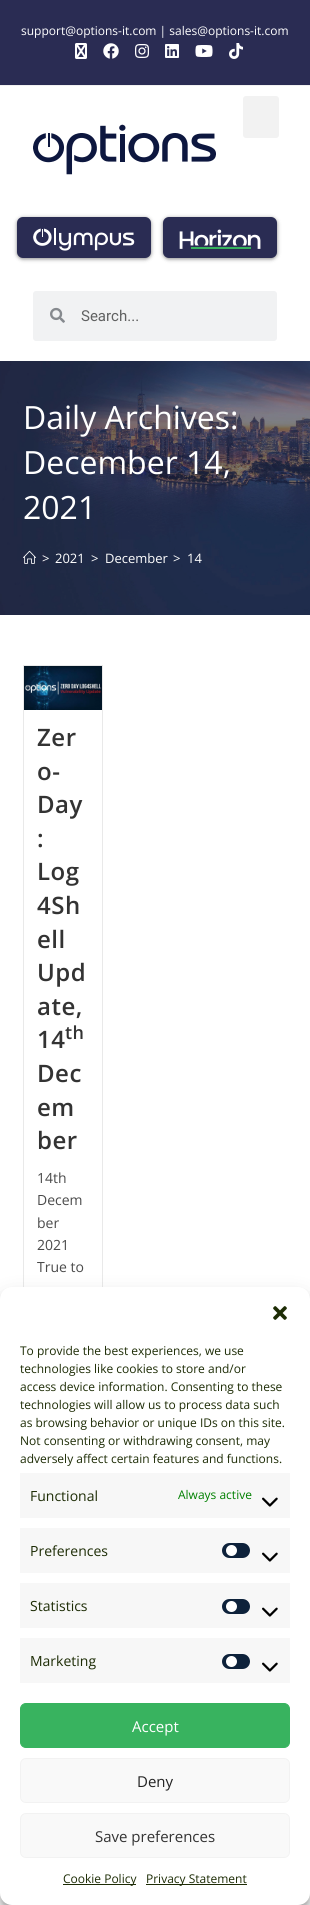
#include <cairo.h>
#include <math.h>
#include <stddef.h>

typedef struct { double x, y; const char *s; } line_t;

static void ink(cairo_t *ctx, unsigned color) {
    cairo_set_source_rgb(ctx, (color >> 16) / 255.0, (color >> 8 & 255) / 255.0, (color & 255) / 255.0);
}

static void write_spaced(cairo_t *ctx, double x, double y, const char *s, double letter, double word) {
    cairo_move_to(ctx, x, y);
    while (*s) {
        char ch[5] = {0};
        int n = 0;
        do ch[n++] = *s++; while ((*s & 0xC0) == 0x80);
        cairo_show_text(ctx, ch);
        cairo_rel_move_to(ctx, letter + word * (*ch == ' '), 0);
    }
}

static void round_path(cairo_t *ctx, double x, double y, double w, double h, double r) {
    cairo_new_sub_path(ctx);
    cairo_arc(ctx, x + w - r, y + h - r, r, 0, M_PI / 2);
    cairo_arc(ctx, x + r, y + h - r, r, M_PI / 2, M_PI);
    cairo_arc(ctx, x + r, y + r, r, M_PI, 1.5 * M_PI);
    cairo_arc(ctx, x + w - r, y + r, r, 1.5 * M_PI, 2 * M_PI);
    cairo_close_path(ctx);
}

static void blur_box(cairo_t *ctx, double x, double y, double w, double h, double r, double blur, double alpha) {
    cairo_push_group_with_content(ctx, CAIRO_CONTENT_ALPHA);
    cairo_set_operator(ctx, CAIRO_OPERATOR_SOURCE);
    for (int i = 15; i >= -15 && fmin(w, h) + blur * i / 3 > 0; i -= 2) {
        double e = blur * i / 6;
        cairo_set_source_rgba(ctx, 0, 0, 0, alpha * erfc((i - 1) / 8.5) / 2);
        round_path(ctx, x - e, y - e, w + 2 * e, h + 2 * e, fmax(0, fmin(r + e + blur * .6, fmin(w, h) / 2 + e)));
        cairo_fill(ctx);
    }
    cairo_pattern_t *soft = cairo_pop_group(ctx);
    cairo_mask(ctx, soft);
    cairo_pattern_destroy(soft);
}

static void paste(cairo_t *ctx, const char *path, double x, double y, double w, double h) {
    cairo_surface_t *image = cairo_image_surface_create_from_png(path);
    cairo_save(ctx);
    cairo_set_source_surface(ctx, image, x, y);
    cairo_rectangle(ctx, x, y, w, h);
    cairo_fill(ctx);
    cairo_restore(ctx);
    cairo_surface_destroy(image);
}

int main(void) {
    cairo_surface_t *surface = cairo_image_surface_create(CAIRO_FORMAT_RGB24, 310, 1905);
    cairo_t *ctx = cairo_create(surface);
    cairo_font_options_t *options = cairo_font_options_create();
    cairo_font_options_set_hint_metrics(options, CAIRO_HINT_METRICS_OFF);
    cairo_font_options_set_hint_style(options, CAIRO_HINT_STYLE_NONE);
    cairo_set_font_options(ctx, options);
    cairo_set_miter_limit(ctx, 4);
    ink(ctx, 0xFFFFFF);
    cairo_paint(ctx);
    ink(ctx, 0x2A2C53);
    cairo_rectangle(ctx, 0, 0, 310, 85);
    cairo_fill(ctx);
    ink(ctx, 0xF1F1F1);
    cairo_rectangle(ctx, 0, 85, 310, 1);
    cairo_fill(ctx);
    cairo_select_font_face(ctx, "Open Sans", CAIRO_FONT_SLANT_NORMAL, CAIRO_FONT_WEIGHT_NORMAL);
    cairo_set_font_size(ctx, 12);
    ink(ctx, 0xFFFFFF);
    cairo_move_to(ctx, 21, 35);
    cairo_show_text(ctx, "support@options-it.com | sales@options-it.com");
    paste(ctx, "media/1.png", 75, 43, 12, 16);
    paste(ctx, "media/2.png", 103, 43, 16, 16);
    paste(ctx, "media/3.png", 135, 44, 14, 14);
    paste(ctx, "media/4.png", 165, 44, 14, 14);
    paste(ctx, "media/5.png", 195, 45, 18, 12);
    paste(ctx, "media/6.png", 229, 43, 14, 16);
    ink(ctx, 0xF2F2F2);
    round_path(ctx, 243, 96, 36, 42, 3);
    cairo_fill(ctx);
    paste(ctx, "media/7.png", 33, 124, 183, 51);
    ink(ctx, 0x0C0C0D);
    blur_box(ctx, 17, 218, 134, 41, 6, 2, 0.5);
    ink(ctx, 0x2A2C53);
    round_path(ctx, 17, 217, 134, 41, 6);
    cairo_fill(ctx);
    paste(ctx, "media/8.png", 33, 228, 102, 23);
    ink(ctx, 0x0C0C0D);
    blur_box(ctx, 163, 218, 114, 41, 6, 2, 0.5);
    ink(ctx, 0x2A2C53);
    round_path(ctx, 163, 217, 114, 41, 6);
    cairo_fill(ctx);
    paste(ctx, "media/9.png", 179, 229, 82, 20);
    ink(ctx, 0xF1F2F3);
    round_path(ctx, 33, 291, 244, 50, 3);
    cairo_fill(ctx);
    paste(ctx, "media/10.png", 50, 307, 15, 16);
    cairo_select_font_face(ctx, "Roboto", CAIRO_FONT_SLANT_NORMAL, CAIRO_FONT_WEIGHT_NORMAL);
    cairo_set_font_size(ctx, 15);
    ink(ctx, 0x606161);
    cairo_move_to(ctx, 81, 321);
    cairo_show_text(ctx, "Search...");
    paste(ctx, "media/11.png", 0, 361, 310, 254);
    cairo_select_font_face(ctx, "Open Sans", CAIRO_FONT_SLANT_NORMAL, CAIRO_FONT_WEIGHT_NORMAL);
    cairo_set_font_size(ctx, 32);
    ink(ctx, 0xFFFFFF);
    {
        static const line_t items[] = {
            {23, 429, "Daily Archives:"},
            {23, 474, "December 14,"},
            {23, 519, "2021"},
        };
        for (size_t i = 0; i < sizeof items / sizeof *items; i++) {
            cairo_move_to(ctx, items[i].x, items[i].y);
            cairo_show_text(ctx, items[i].s);
        }
    }
    paste(ctx, "media/12.png", 23, 550, 13, 14);
    cairo_set_font_size(ctx, 13);
    {
        static const line_t items[] = {
            {42, 563, ">"},
            {55, 563, "2021"},
            {91, 563, ">"},
            {105, 563, "December"},
            {173, 563, ">"},
            {187, 563, "14"},
        };
        for (size_t i = 0; i < sizeof items / sizeof *items; i++) {
            cairo_move_to(ctx, items[i].x, items[i].y);
            cairo_show_text(ctx, items[i].s);
        }
    }
    cairo_rectangle(ctx, 23.5, 665.5, 79, 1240);
    ink(ctx, 0xE9E9E9);
    cairo_set_line_width(ctx, 1);
    cairo_stroke(ctx);
    paste(ctx, "media/13.png", 24, 666, 78, 44);
    cairo_select_font_face(ctx, "Open Sans SemiBold", CAIRO_FONT_SLANT_NORMAL, CAIRO_FONT_WEIGHT_NORMAL);
    cairo_set_font_size(ctx, 24);
    ink(ctx, 0x333333);
    {
        static const line_t items[] = {
            {37, 746, "Zer"},
            {37, 780, "o-"},
            {37, 813, "Day"},
            {37, 847, ":"},
            {37, 880, "Log"},
            {37, 914, "4Sh"},
            {37, 948, "ell"},
            {37, 981, "Upd"},
            {37, 1015, "ate,"},
            {37, 1048, "14"},
        };
        for (size_t i = 0; i < sizeof items / sizeof *items; i++) {
            write_spaced(ctx, items[i].x, items[i].y, items[i].s, 0.5, 0);
        }
    }
    cairo_set_font_size(ctx, 18);
    write_spaced(ctx, 65, 1039, "th", 0.5, 0);
    cairo_set_font_size(ctx, 24);
    {
        static const line_t items[] = {
            {37, 1082, "Dec"},
            {37, 1116, "em"},
            {37, 1149, "ber"},
        };
        for (size_t i = 0; i < sizeof items / sizeof *items; i++) {
            write_spaced(ctx, items[i].x, items[i].y, items[i].s, 0.5, 0);
        }
    }
    cairo_select_font_face(ctx, "Open Sans", CAIRO_FONT_SLANT_NORMAL, CAIRO_FONT_WEIGHT_NORMAL);
    cairo_set_font_size(ctx, 14);
    ink(ctx, 0x4A4A4A);
    {
        static const line_t items[] = {
            {37, 1183, "14th"},
            {37, 1205, "Decem"},
            {37, 1228, "ber"},
            {37, 1250, "2021"},
            {37, 1272, "True to"},
        };
        for (size_t i = 0; i < sizeof items / sizeof *items; i++) {
            cairo_move_to(ctx, items[i].x, items[i].y);
            cairo_show_text(ctx, items[i].s);
        }
    }
    ink(ctx, 0x000000);
    blur_box(ctx, 0, 1293, 310, 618, 12, 3, 0.23);
    blur_box(ctx, 0, 1297, 310, 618, 12, 10, 0.19);
    ink(ctx, 0xFFFFFF);
    round_path(ctx, 0, 1287, 310, 618, 12);
    cairo_fill(ctx);
    paste(ctx, "media/14.png", 273, 1306, 14, 14);
    cairo_set_font_size(ctx, 12);
    ink(ctx, 0x1D2C05);
    {
        static const line_t items[] = {
            {20, 1355, "To provide the best experiences, we use"},
            {20, 1373, "technologies like cookies to store and/or"},
            {20, 1391, "access device information. Consenting to these"},
            {20, 1409, "technologies will allow us to process data such"},
            {20, 1427, "as browsing behavior or unique IDs on this site."},
            {20, 1445, "Not consenting or withdrawing consent, may"},
            {20, 1463, "adversely affect certain features and functions."},
        };
        for (size_t i = 0; i < sizeof items / sizeof *items; i++) {
            cairo_move_to(ctx, items[i].x, items[i].y);
            cairo_show_text(ctx, items[i].s);
        }
    }
    ink(ctx, 0xF7F7F7);
    cairo_rectangle(ctx, 20, 1473, 270, 45);
    cairo_fill(ctx);
    cairo_set_font_size(ctx, 14);
    ink(ctx, 0x1D2C05);
    cairo_move_to(ctx, 30, 1501);
    cairo_show_text(ctx, "Functional");
    cairo_set_font_size(ctx, 12);
    ink(ctx, 0x008000);
    cairo_move_to(ctx, 178, 1499);
    cairo_show_text(ctx, "Always active");
    paste(ctx, "media/15.png", 262, 1497, 16, 10);
    ink(ctx, 0xF7F7F7);
    cairo_rectangle(ctx, 20, 1528, 270, 45);
    cairo_fill(ctx);
    cairo_set_font_size(ctx, 14);
    ink(ctx, 0x1D2C05);
    cairo_move_to(ctx, 30, 1556);
    cairo_show_text(ctx, "Preferences");
    ink(ctx, 0x0E223B);
    round_path(ctx, 222, 1543, 28, 15, 7.5);
    cairo_fill(ctx);
    ink(ctx, 0xFFFFFF);
    cairo_arc(ctx, 231.5, 1550.5, 5.5, 0, 2 * M_PI);
    cairo_fill(ctx);
    paste(ctx, "media/15.png", 262, 1552, 16, 10);
    ink(ctx, 0xF7F7F7);
    cairo_rectangle(ctx, 20, 1583, 270, 45);
    cairo_fill(ctx);
    ink(ctx, 0x1D2C05);
    cairo_move_to(ctx, 30, 1611);
    cairo_show_text(ctx, "Statistics");
    ink(ctx, 0x0E223B);
    round_path(ctx, 222, 1599, 28, 15, 7.5);
    cairo_fill(ctx);
    ink(ctx, 0xFFFFFF);
    cairo_arc(ctx, 231.5, 1606.5, 5.5, 0, 2 * M_PI);
    cairo_fill(ctx);
    paste(ctx, "media/15.png", 262, 1607, 16, 10);
    ink(ctx, 0xF7F7F7);
    cairo_rectangle(ctx, 20, 1638, 270, 45);
    cairo_fill(ctx);
    ink(ctx, 0x1D2C05);
    cairo_move_to(ctx, 30, 1666);
    cairo_show_text(ctx, "Marketing");
    ink(ctx, 0x0E223B);
    round_path(ctx, 222, 1654, 28, 15, 7.5);
    cairo_fill(ctx);
    ink(ctx, 0xFFFFFF);
    cairo_arc(ctx, 231.5, 1661.5, 5.5, 0, 2 * M_PI);
    cairo_fill(ctx);
    paste(ctx, "media/15.png", 262, 1662, 16, 10);
    ink(ctx, 0x38B35F);
    round_path(ctx, 20.5, 1703.5, 269, 44, 5.5);
    cairo_fill_preserve(ctx);
    cairo_stroke(ctx);
    cairo_set_font_size(ctx, 15);
    ink(ctx, 0xFFFFFF);
    cairo_move_to(ctx, 132, 1732);
    cairo_show_text(ctx, "Accept");
    ink(ctx, 0xF9F9F9);
    round_path(ctx, 20.5, 1758.5, 269, 44, 5.5);
    cairo_fill_preserve(ctx);
    ink(ctx, 0xF2F2F2);
    cairo_stroke(ctx);
    ink(ctx, 0x222222);
    cairo_move_to(ctx, 137, 1787);
    cairo_show_text(ctx, "Deny");
    ink(ctx, 0xF9F9F9);
    round_path(ctx, 20.5, 1813.5, 269, 44, 5.5);
    cairo_fill_preserve(ctx);
    ink(ctx, 0xF2F2F2);
    cairo_stroke(ctx);
    ink(ctx, 0x333333);
    cairo_move_to(ctx, 95, 1842);
    cairo_show_text(ctx, "Save preferences");
    ink(ctx, 0x1D2C05);
    cairo_rectangle(ctx, 63, 1884, 73, 1);
    cairo_fill(ctx);
    cairo_set_font_size(ctx, 12);
    cairo_move_to(ctx, 63, 1883);
    cairo_show_text(ctx, "Cookie Policy");
    cairo_rectangle(ctx, 146, 1884, 101, 1);
    cairo_fill(ctx);
    cairo_move_to(ctx, 146, 1883);
    cairo_show_text(ctx, "Privacy Statement");
    cairo_surface_write_to_png(surface, "image.png");
    cairo_font_options_destroy(options);
    cairo_destroy(ctx);
    cairo_surface_destroy(surface);
    return 0;
}
